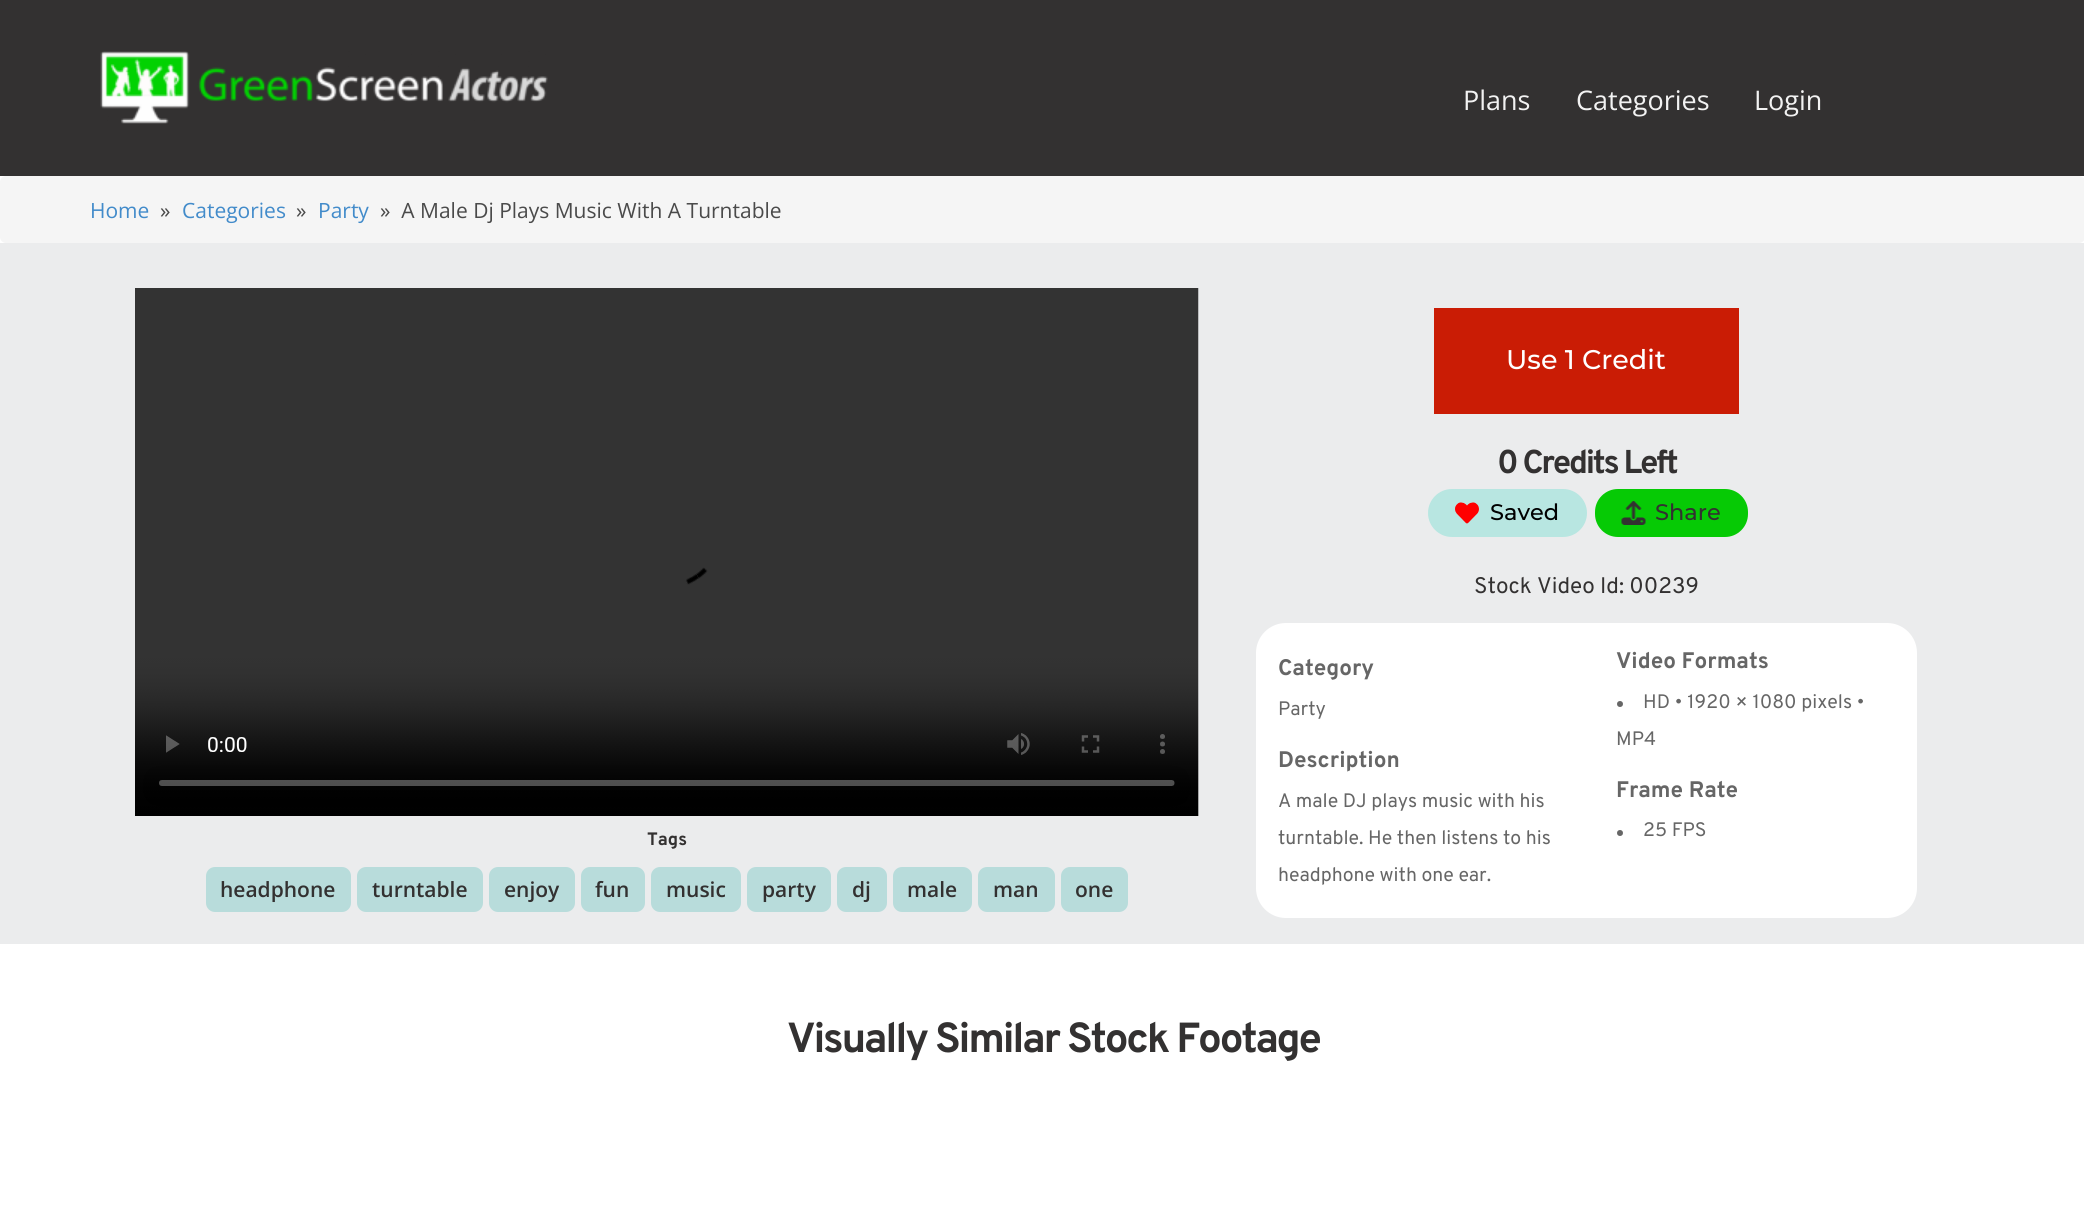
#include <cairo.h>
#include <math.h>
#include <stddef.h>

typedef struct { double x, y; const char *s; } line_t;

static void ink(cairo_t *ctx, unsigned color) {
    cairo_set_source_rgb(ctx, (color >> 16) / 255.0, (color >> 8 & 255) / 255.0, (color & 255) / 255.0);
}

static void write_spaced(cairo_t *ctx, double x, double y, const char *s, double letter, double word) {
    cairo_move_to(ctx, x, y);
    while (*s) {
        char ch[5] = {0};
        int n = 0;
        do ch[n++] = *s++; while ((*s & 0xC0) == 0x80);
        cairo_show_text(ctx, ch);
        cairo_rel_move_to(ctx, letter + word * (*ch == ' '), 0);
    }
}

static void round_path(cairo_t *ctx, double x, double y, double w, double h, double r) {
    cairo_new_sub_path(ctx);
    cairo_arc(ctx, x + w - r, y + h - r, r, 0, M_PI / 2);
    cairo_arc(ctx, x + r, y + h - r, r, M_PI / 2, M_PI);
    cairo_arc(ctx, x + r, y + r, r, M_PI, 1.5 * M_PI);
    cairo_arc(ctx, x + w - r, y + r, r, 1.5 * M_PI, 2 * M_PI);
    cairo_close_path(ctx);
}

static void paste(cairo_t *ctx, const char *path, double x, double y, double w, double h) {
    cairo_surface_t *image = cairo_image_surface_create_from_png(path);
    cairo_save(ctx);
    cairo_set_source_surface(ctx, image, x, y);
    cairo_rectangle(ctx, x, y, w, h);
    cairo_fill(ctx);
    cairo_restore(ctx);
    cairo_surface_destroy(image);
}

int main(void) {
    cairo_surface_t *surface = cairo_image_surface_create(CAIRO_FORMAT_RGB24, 2084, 1206);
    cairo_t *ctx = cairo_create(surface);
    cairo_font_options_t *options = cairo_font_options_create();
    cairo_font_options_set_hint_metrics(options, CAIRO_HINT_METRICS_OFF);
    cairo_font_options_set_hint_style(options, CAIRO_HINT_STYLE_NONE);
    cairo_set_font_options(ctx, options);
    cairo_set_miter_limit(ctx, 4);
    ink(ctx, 0xFFFFFF);
    cairo_paint(ctx);
    ink(ctx, 0x333131);
    cairo_rectangle(ctx, 0, 0, 2084, 176);
    cairo_fill(ctx);
    paste(ctx, "media/1.png", 100, 51, 448, 73);
    cairo_select_font_face(ctx, "Open Sans", CAIRO_FONT_SLANT_NORMAL, CAIRO_FONT_WEIGHT_NORMAL);
    cairo_set_font_size(ctx, 27);
    ink(ctx, 0xF2F2F2);
    {
        static const line_t items[] = {
            {1463, 110, "Plans"},
            {1576, 110, "Categories"},
            {1754, 110, "Login"},
        };
        for (size_t i = 0; i < sizeof items / sizeof *items; i++) {
            cairo_move_to(ctx, items[i].x, items[i].y);
            cairo_show_text(ctx, items[i].s);
        }
    }
    ink(ctx, 0xF5F5F5);
    round_path(ctx, 0, 176, 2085, 67, 6);
    cairo_fill(ctx);
    cairo_set_font_size(ctx, 21);
    ink(ctx, 0x428BCA);
    cairo_move_to(ctx, 90, 218);
    cairo_show_text(ctx, "Home");
    ink(ctx, 0x4A4A4A);
    cairo_move_to(ctx, 160, 218);
    cairo_show_text(ctx, "»");
    ink(ctx, 0x428BCA);
    cairo_move_to(ctx, 182, 218);
    cairo_show_text(ctx, "Categories");
    ink(ctx, 0x4A4A4A);
    cairo_move_to(ctx, 296, 218);
    cairo_show_text(ctx, "»");
    ink(ctx, 0x428BCA);
    cairo_move_to(ctx, 318, 218);
    cairo_show_text(ctx, "Party");
    ink(ctx, 0x4A4A4A);
    cairo_move_to(ctx, 380, 218);
    cairo_show_text(ctx, "»  A Male Dj Plays Music With A Turntable");
    ink(ctx, 0xEBECED);
    cairo_rectangle(ctx, 0, 243, 2084, 701);
    cairo_fill(ctx);
    paste(ctx, "media/2.png", 135, 288, 1064, 528);
    cairo_select_font_face(ctx, "Overpass", CAIRO_FONT_SLANT_NORMAL, CAIRO_FONT_WEIGHT_BOLD);
    cairo_set_font_size(ctx, 18);
    ink(ctx, 0x333131);
    cairo_move_to(ctx, 647, 845);
    cairo_show_text(ctx, "Tags");
    ink(ctx, 0xB8DCDB);
    round_path(ctx, 206, 867, 145, 45, 9);
    cairo_fill(ctx);
    cairo_select_font_face(ctx, "Open Sans SemiBold", CAIRO_FONT_SLANT_NORMAL, CAIRO_FONT_WEIGHT_NORMAL);
    cairo_set_font_size(ctx, 21);
    ink(ctx, 0x333131);
    cairo_move_to(ctx, 220, 897);
    cairo_show_text(ctx, "headphone");
    ink(ctx, 0xB8DCDB);
    round_path(ctx, 357, 867, 126, 45, 9);
    cairo_fill(ctx);
    ink(ctx, 0x333131);
    cairo_move_to(ctx, 372, 897);
    cairo_show_text(ctx, "turntable");
    ink(ctx, 0xB8DCDB);
    round_path(ctx, 489, 867, 86, 45, 9);
    cairo_fill(ctx);
    ink(ctx, 0x333131);
    cairo_move_to(ctx, 504, 897);
    cairo_show_text(ctx, "enjoy");
    ink(ctx, 0xB8DCDB);
    round_path(ctx, 581, 867, 64, 45, 9);
    cairo_fill(ctx);
    ink(ctx, 0x333131);
    cairo_move_to(ctx, 595, 897);
    cairo_show_text(ctx, "fun");
    ink(ctx, 0xB8DCDB);
    round_path(ctx, 651, 867, 90, 45, 9);
    cairo_fill(ctx);
    ink(ctx, 0x333131);
    cairo_move_to(ctx, 666, 897);
    cairo_show_text(ctx, "music");
    ink(ctx, 0xB8DCDB);
    round_path(ctx, 747, 867, 84, 45, 9);
    cairo_fill(ctx);
    ink(ctx, 0x333131);
    cairo_move_to(ctx, 762, 897);
    cairo_show_text(ctx, "party");
    ink(ctx, 0xB8DCDB);
    round_path(ctx, 837, 867, 50, 45, 9);
    cairo_fill(ctx);
    ink(ctx, 0x333131);
    cairo_move_to(ctx, 852, 897);
    cairo_show_text(ctx, "dj");
    ink(ctx, 0xB8DCDB);
    round_path(ctx, 893, 867, 79, 45, 9);
    cairo_fill(ctx);
    ink(ctx, 0x333131);
    cairo_move_to(ctx, 907, 897);
    cairo_show_text(ctx, "male");
    ink(ctx, 0xB8DCDB);
    round_path(ctx, 978, 867, 77, 45, 9);
    cairo_fill(ctx);
    ink(ctx, 0x333131);
    cairo_move_to(ctx, 993, 897);
    cairo_show_text(ctx, "man");
    ink(ctx, 0xB8DCDB);
    round_path(ctx, 1061, 867, 67, 45, 9);
    cairo_fill(ctx);
    ink(ctx, 0x333131);
    cairo_move_to(ctx, 1075, 897);
    cairo_show_text(ctx, "one");
    ink(ctx, 0xCA1C05);
    cairo_rectangle(ctx, 1434, 308, 305, 106);
    cairo_fill(ctx);
    cairo_select_font_face(ctx, "Montserrat Thin", CAIRO_FONT_SLANT_NORMAL, CAIRO_FONT_WEIGHT_NORMAL);
    cairo_set_font_size(ctx, 27);
    ink(ctx, 0xFFFFFF);
    cairo_move_to(ctx, 1506, 369);
    cairo_show_text(ctx, "Use 1 Credit");
    cairo_select_font_face(ctx, "Overpass", CAIRO_FONT_SLANT_NORMAL, CAIRO_FONT_WEIGHT_BOLD);
    cairo_set_font_size(ctx, 33);
    ink(ctx, 0x333131);
    write_spaced(ctx, 1497, 473, "0 Credits Left", -2.25, 0);
    ink(ctx, 0xB8E6E1);
    round_path(ctx, 1428, 489, 159, 48, 24);
    cairo_fill(ctx);
    paste(ctx, "media/3.png", 1455, 502, 24, 22);
    cairo_select_font_face(ctx, "Montserrat Thin", CAIRO_FONT_SLANT_NORMAL, CAIRO_FONT_WEIGHT_NORMAL);
    cairo_set_font_size(ctx, 22.5);
    ink(ctx, 0x000000);
    cairo_move_to(ctx, 1490, 520);
    cairo_show_text(ctx, "Saved");
    ink(ctx, 0x06CA05);
    round_path(ctx, 1595, 489, 153, 48, 23);
    cairo_fill(ctx);
    paste(ctx, "media/4.png", 1621, 501, 25, 24);
    ink(ctx, 0x333131);
    cairo_move_to(ctx, 1655, 520);
    cairo_show_text(ctx, "Share");
    cairo_select_font_face(ctx, "Overpass", CAIRO_FONT_SLANT_NORMAL, CAIRO_FONT_WEIGHT_NORMAL);
    cairo_move_to(ctx, 1474, 593);
    cairo_show_text(ctx, "Stock Video Id: 00239");
    ink(ctx, 0xFFFFFF);
    round_path(ctx, 1256, 623, 661, 295, 30);
    cairo_fill(ctx);
    cairo_select_font_face(ctx, "Overpass", CAIRO_FONT_SLANT_NORMAL, CAIRO_FONT_WEIGHT_BOLD);
    ink(ctx, 0x666666);
    cairo_move_to(ctx, 1278, 675);
    cairo_show_text(ctx, "Category");
    cairo_select_font_face(ctx, "Overpass", CAIRO_FONT_SLANT_NORMAL, CAIRO_FONT_WEIGHT_NORMAL);
    cairo_set_font_size(ctx, 19.5);
    cairo_move_to(ctx, 1278, 715);
    cairo_show_text(ctx, "Party");
    cairo_select_font_face(ctx, "Overpass", CAIRO_FONT_SLANT_NORMAL, CAIRO_FONT_WEIGHT_BOLD);
    cairo_set_font_size(ctx, 22.5);
    cairo_move_to(ctx, 1278, 767);
    cairo_show_text(ctx, "Description");
    cairo_select_font_face(ctx, "Overpass", CAIRO_FONT_SLANT_NORMAL, CAIRO_FONT_WEIGHT_NORMAL);
    cairo_set_font_size(ctx, 19.5);
    {
        static const line_t items[] = {
            {1278, 807, "A male DJ plays music with his"},
            {1278, 844, "turntable. He then listens to his"},
            {1278, 881, "headphone with one ear."},
        };
        for (size_t i = 0; i < sizeof items / sizeof *items; i++) {
            cairo_move_to(ctx, items[i].x, items[i].y);
            cairo_show_text(ctx, items[i].s);
        }
    }
    cairo_select_font_face(ctx, "Overpass", CAIRO_FONT_SLANT_NORMAL, CAIRO_FONT_WEIGHT_BOLD);
    cairo_set_font_size(ctx, 22.5);
    cairo_move_to(ctx, 1616, 668);
    cairo_show_text(ctx, "Video Formats");
    cairo_new_path(ctx);
    cairo_arc(ctx, 1620, 704, 3, 0, 2 * M_PI);
    cairo_fill(ctx);
    cairo_select_font_face(ctx, "Overpass", CAIRO_FONT_SLANT_NORMAL, CAIRO_FONT_WEIGHT_NORMAL);
    cairo_set_font_size(ctx, 19.5);
    cairo_move_to(ctx, 1643, 708);
    cairo_show_text(ctx, "HD • 1920 × 1080 pixels •");
    cairo_move_to(ctx, 1616, 745);
    cairo_show_text(ctx, "MP4");
    cairo_select_font_face(ctx, "Overpass", CAIRO_FONT_SLANT_NORMAL, CAIRO_FONT_WEIGHT_BOLD);
    cairo_set_font_size(ctx, 22.5);
    cairo_move_to(ctx, 1616, 797);
    cairo_show_text(ctx, "Frame Rate");
    cairo_new_path(ctx);
    cairo_arc(ctx, 1620, 833, 3, 0, 2 * M_PI);
    cairo_fill(ctx);
    cairo_select_font_face(ctx, "Overpass", CAIRO_FONT_SLANT_NORMAL, CAIRO_FONT_WEIGHT_NORMAL);
    cairo_set_font_size(ctx, 19.5);
    cairo_move_to(ctx, 1643, 836);
    cairo_show_text(ctx, "25 FPS");
    cairo_select_font_face(ctx, "Overpass", CAIRO_FONT_SLANT_NORMAL, CAIRO_FONT_WEIGHT_BOLD);
    cairo_set_font_size(ctx, 42);
    ink(ctx, 0x333131);
    write_spaced(ctx, 787, 1052, "Visually Similar Stock Footage", -2.25, 0);
    cairo_surface_write_to_png(surface, "image.png");
    cairo_font_options_destroy(options);
    cairo_destroy(ctx);
    cairo_surface_destroy(surface);
    return 0;
}
